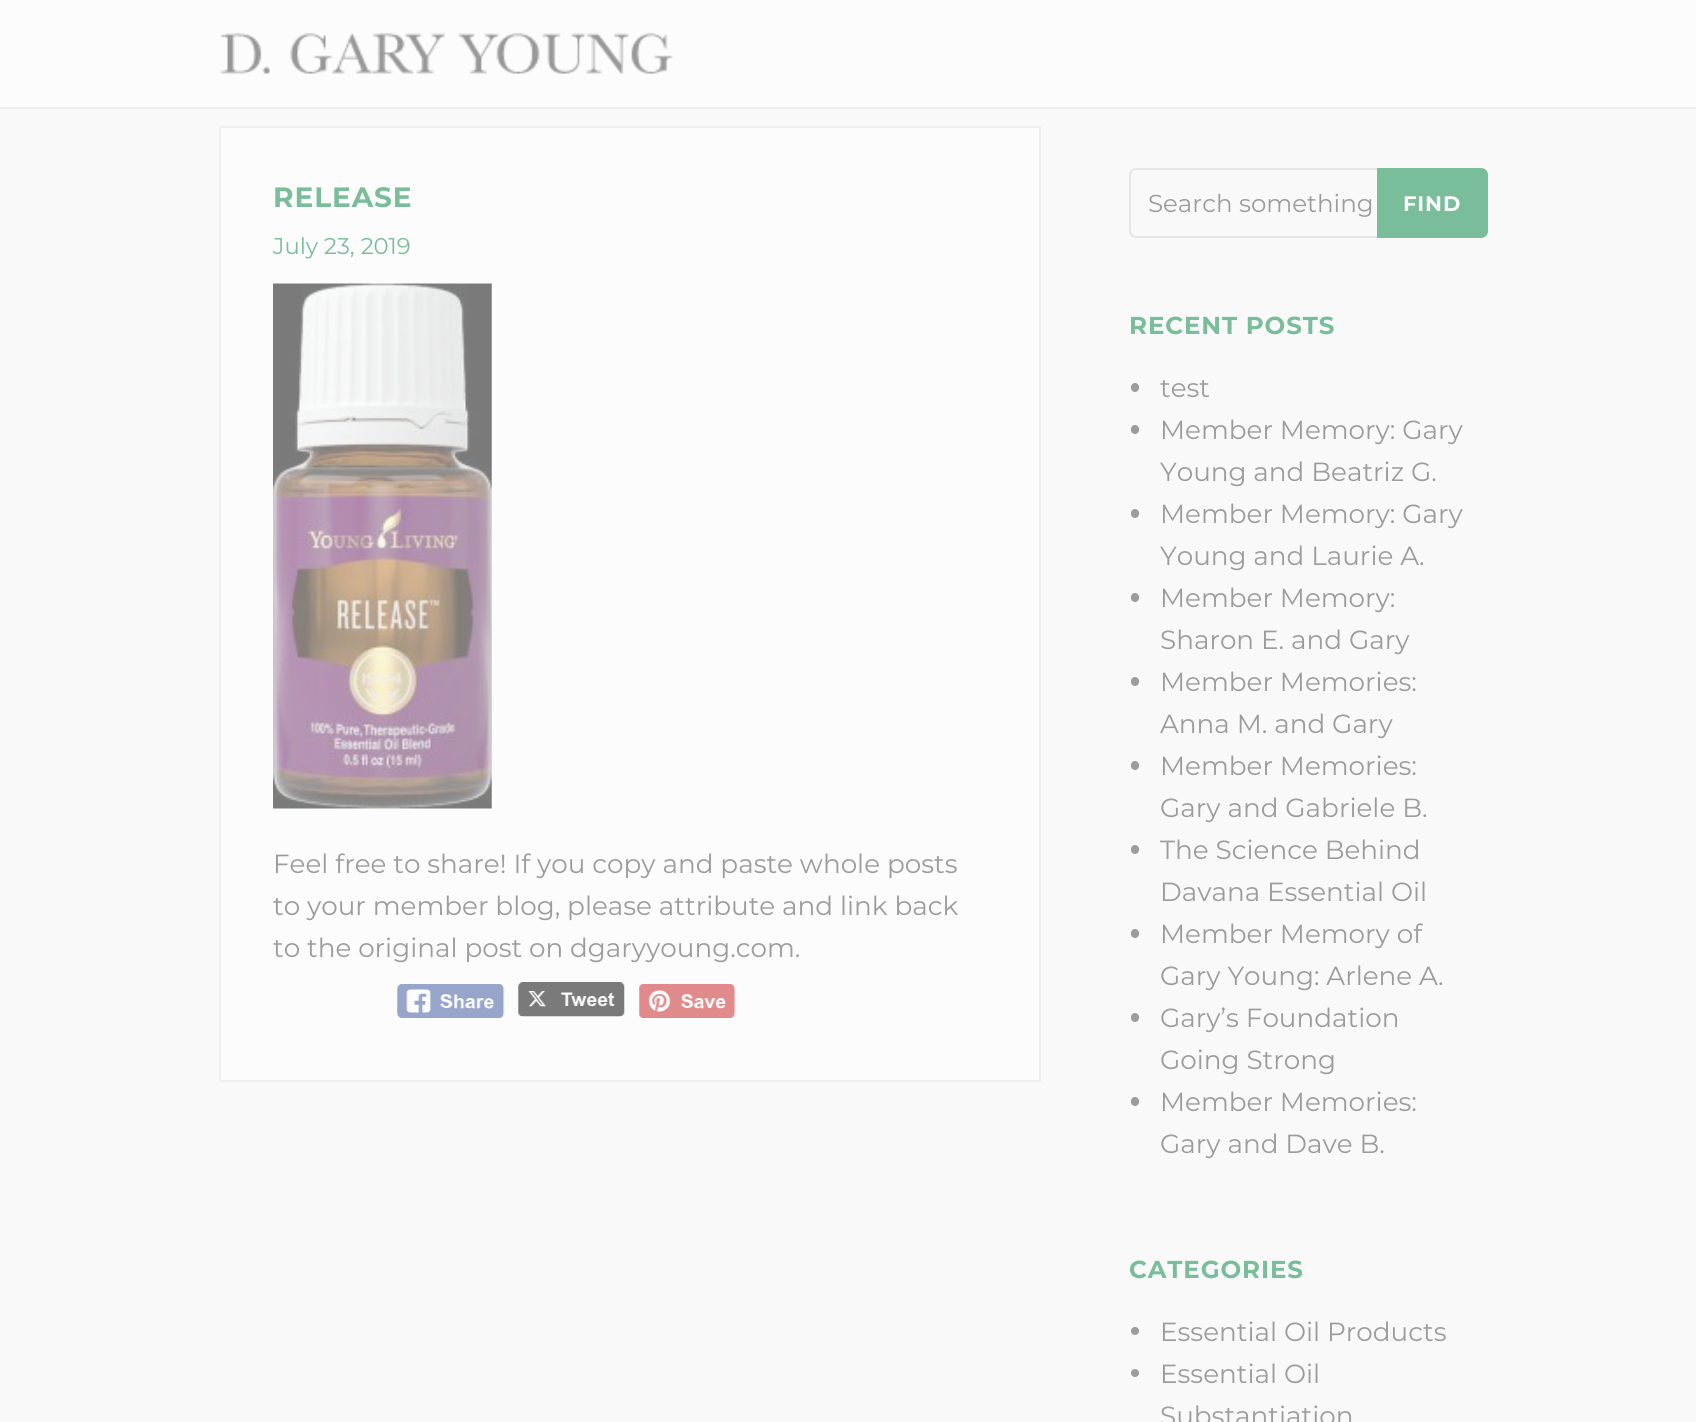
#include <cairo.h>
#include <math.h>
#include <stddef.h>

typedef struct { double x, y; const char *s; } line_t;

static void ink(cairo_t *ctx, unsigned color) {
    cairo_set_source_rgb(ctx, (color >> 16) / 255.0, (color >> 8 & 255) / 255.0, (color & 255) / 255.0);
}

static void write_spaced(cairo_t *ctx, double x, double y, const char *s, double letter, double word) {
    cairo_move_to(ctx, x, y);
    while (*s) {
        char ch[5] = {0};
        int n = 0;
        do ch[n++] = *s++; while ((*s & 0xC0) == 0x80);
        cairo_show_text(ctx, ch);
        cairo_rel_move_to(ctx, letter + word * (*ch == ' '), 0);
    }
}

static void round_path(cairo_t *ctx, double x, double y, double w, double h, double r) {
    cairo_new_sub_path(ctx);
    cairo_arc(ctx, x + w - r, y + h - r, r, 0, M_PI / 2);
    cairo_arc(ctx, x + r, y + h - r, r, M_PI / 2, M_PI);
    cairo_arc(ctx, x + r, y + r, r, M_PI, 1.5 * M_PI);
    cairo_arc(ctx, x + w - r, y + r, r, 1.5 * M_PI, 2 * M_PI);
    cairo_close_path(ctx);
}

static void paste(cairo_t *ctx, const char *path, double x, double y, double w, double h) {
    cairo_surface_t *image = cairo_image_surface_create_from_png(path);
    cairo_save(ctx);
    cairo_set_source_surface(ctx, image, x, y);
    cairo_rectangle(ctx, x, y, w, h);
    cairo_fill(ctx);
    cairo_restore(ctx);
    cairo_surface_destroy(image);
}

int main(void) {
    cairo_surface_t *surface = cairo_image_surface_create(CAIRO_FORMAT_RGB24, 1696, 1422);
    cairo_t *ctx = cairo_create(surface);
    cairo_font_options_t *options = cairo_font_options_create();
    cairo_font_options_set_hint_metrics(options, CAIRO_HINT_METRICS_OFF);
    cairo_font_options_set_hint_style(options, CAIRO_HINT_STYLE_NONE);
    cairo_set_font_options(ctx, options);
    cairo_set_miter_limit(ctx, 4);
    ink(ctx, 0xFCFCFC);
    cairo_paint(ctx);
    ink(ctx, 0xEFEFEF);
    cairo_rectangle(ctx, 0, 107, 1696, 2);
    cairo_fill(ctx);
    paste(ctx, "media/1.png", 220, 32, 453, 42);
    ink(ctx, 0xF9F9F9);
    cairo_rectangle(ctx, 0, 109, 1696, 1313);
    cairo_fill(ctx);
    ink(ctx, 0xFCFCFC);
    cairo_rectangle(ctx, 220, 127, 820, 954);
    cairo_fill_preserve(ctx);
    ink(ctx, 0xEFEFEF);
    cairo_stroke(ctx);
    cairo_select_font_face(ctx, "Montserrat", CAIRO_FONT_SLANT_NORMAL, CAIRO_FONT_WEIGHT_BOLD);
    cairo_set_font_size(ctx, 28);
    ink(ctx, 0x7ABD9A);
    write_spaced(ctx, 273, 207, "RELEASE", 0.9, 0);
    cairo_select_font_face(ctx, "Montserrat Thin", CAIRO_FONT_SLANT_NORMAL, CAIRO_FONT_WEIGHT_NORMAL);
    cairo_set_font_size(ctx, 22.75);
    cairo_move_to(ctx, 273, 254);
    cairo_show_text(ctx, "July 23, 2019");
    paste(ctx, "media/2.png", 273, 283, 219, 526);
    cairo_set_font_size(ctx, 26.25);
    ink(ctx, 0x9C9C9C);
    {
        static const line_t items[] = {
            {273, 873, "Feel free to share! If you copy and paste whole posts"},
            {273, 915, "to your member blog, please attribute and link back"},
            {273, 957, "to the original post on dgaryyoung.com."},
        };
        for (size_t i = 0; i < sizeof items / sizeof *items; i++) {
            cairo_move_to(ctx, items[i].x, items[i].y);
            cairo_show_text(ctx, items[i].s);
        }
    }
    paste(ctx, "media/3.png", 397, 984, 108, 34);
    paste(ctx, "media/4.png", 518, 982, 107, 35);
    paste(ctx, "media/5.png", 639, 984, 97, 34);
    round_path(ctx, 1130, 169, 348, 68, 6);
    ink(ctx, 0xE6E6E6);
    cairo_stroke(ctx);
    cairo_set_font_size(ctx, 24.5);
    ink(ctx, 0x9C9C9C);
    cairo_move_to(ctx, 1148, 212);
    cairo_show_text(ctx, "Search something");
    ink(ctx, 0x7ABD9A);
    cairo_new_path(ctx);
    cairo_move_to(ctx, 1377, 168);
    cairo_line_to(ctx, 1481, 168);
    cairo_curve_to(ctx, 1485, 168, 1488, 171, 1488, 175);
    cairo_line_to(ctx, 1488, 231);
    cairo_curve_to(ctx, 1488, 235, 1485, 238, 1481, 238);
    cairo_line_to(ctx, 1377, 238);
    cairo_close_path(ctx);
    cairo_fill(ctx);
    cairo_select_font_face(ctx, "Montserrat", CAIRO_FONT_SLANT_NORMAL, CAIRO_FONT_WEIGHT_BOLD);
    cairo_set_font_size(ctx, 21);
    ink(ctx, 0xFCFCFC);
    write_spaced(ctx, 1403, 211, "FIND", 0.9, 0);
    cairo_set_font_size(ctx, 24.5);
    ink(ctx, 0x7ABD9A);
    write_spaced(ctx, 1129, 334, "RECENT POSTS", 0.9, 0);
    ink(ctx, 0x9C9C9C);
    round_path(ctx, 1131, 383, 8, 9, 4);
    cairo_fill(ctx);
    cairo_select_font_face(ctx, "Montserrat Thin", CAIRO_FONT_SLANT_NORMAL, CAIRO_FONT_WEIGHT_NORMAL);
    cairo_set_font_size(ctx, 26.25);
    cairo_move_to(ctx, 1160, 397);
    cairo_show_text(ctx, "test");
    round_path(ctx, 1131, 425, 8, 9, 4);
    cairo_fill(ctx);
    cairo_move_to(ctx, 1160, 439);
    cairo_show_text(ctx, "Member Memory: Gary");
    cairo_move_to(ctx, 1160, 481);
    cairo_show_text(ctx, "Young and Beatriz G.");
    round_path(ctx, 1131, 509, 8, 9, 4);
    cairo_fill(ctx);
    cairo_move_to(ctx, 1160, 523);
    cairo_show_text(ctx, "Member Memory: Gary");
    cairo_move_to(ctx, 1160, 565);
    cairo_show_text(ctx, "Young and Laurie A.");
    round_path(ctx, 1131, 593, 8, 9, 4);
    cairo_fill(ctx);
    cairo_move_to(ctx, 1160, 607);
    cairo_show_text(ctx, "Member Memory:");
    cairo_move_to(ctx, 1160, 649);
    cairo_show_text(ctx, "Sharon E. and Gary");
    round_path(ctx, 1131, 677, 8, 9, 4);
    cairo_fill(ctx);
    cairo_move_to(ctx, 1160, 691);
    cairo_show_text(ctx, "Member Memories:");
    cairo_move_to(ctx, 1160, 733);
    cairo_show_text(ctx, "Anna M. and Gary");
    round_path(ctx, 1131, 761, 8, 9, 4);
    cairo_fill(ctx);
    cairo_move_to(ctx, 1160, 775);
    cairo_show_text(ctx, "Member Memories:");
    cairo_move_to(ctx, 1160, 817);
    cairo_show_text(ctx, "Gary and Gabriele B.");
    round_path(ctx, 1131, 845, 8, 9, 4);
    cairo_fill(ctx);
    cairo_move_to(ctx, 1160, 859);
    cairo_show_text(ctx, "The Science Behind");
    cairo_move_to(ctx, 1160, 901);
    cairo_show_text(ctx, "Davana Essential Oil");
    round_path(ctx, 1131, 929, 8, 9, 4);
    cairo_fill(ctx);
    cairo_move_to(ctx, 1160, 943);
    cairo_show_text(ctx, "Member Memory of");
    cairo_move_to(ctx, 1160, 985);
    cairo_show_text(ctx, "Gary Young: Arlene A.");
    round_path(ctx, 1131, 1013, 8, 9, 4);
    cairo_fill(ctx);
    cairo_move_to(ctx, 1160, 1027);
    cairo_show_text(ctx, "Gary’s Foundation");
    cairo_move_to(ctx, 1160, 1069);
    cairo_show_text(ctx, "Going Strong");
    round_path(ctx, 1131, 1097, 8, 9, 4);
    cairo_fill(ctx);
    cairo_move_to(ctx, 1160, 1111);
    cairo_show_text(ctx, "Member Memories:");
    cairo_move_to(ctx, 1160, 1153);
    cairo_show_text(ctx, "Gary and Dave B.");
    cairo_select_font_face(ctx, "Montserrat", CAIRO_FONT_SLANT_NORMAL, CAIRO_FONT_WEIGHT_BOLD);
    cairo_set_font_size(ctx, 24.5);
    ink(ctx, 0x7ABD9A);
    write_spaced(ctx, 1129, 1278, "CATEGORIES", 0.9, 0);
    ink(ctx, 0x9C9C9C);
    cairo_new_path(ctx);
    cairo_arc(ctx, 1135, 1331, 4, 0, 2 * M_PI);
    cairo_fill(ctx);
    cairo_select_font_face(ctx, "Montserrat Thin", CAIRO_FONT_SLANT_NORMAL, CAIRO_FONT_WEIGHT_NORMAL);
    cairo_set_font_size(ctx, 26.25);
    cairo_move_to(ctx, 1160, 1341);
    cairo_show_text(ctx, "Essential Oil Products");
    cairo_new_path(ctx);
    cairo_arc(ctx, 1135, 1373, 4, 0, 2 * M_PI);
    cairo_fill(ctx);
    cairo_move_to(ctx, 1160, 1383);
    cairo_show_text(ctx, "Essential Oil");
    cairo_move_to(ctx, 1160, 1425);
    cairo_show_text(ctx, "Substantiation");
    cairo_surface_write_to_png(surface, "image.png");
    cairo_font_options_destroy(options);
    cairo_destroy(ctx);
    cairo_surface_destroy(surface);
    return 0;
}
